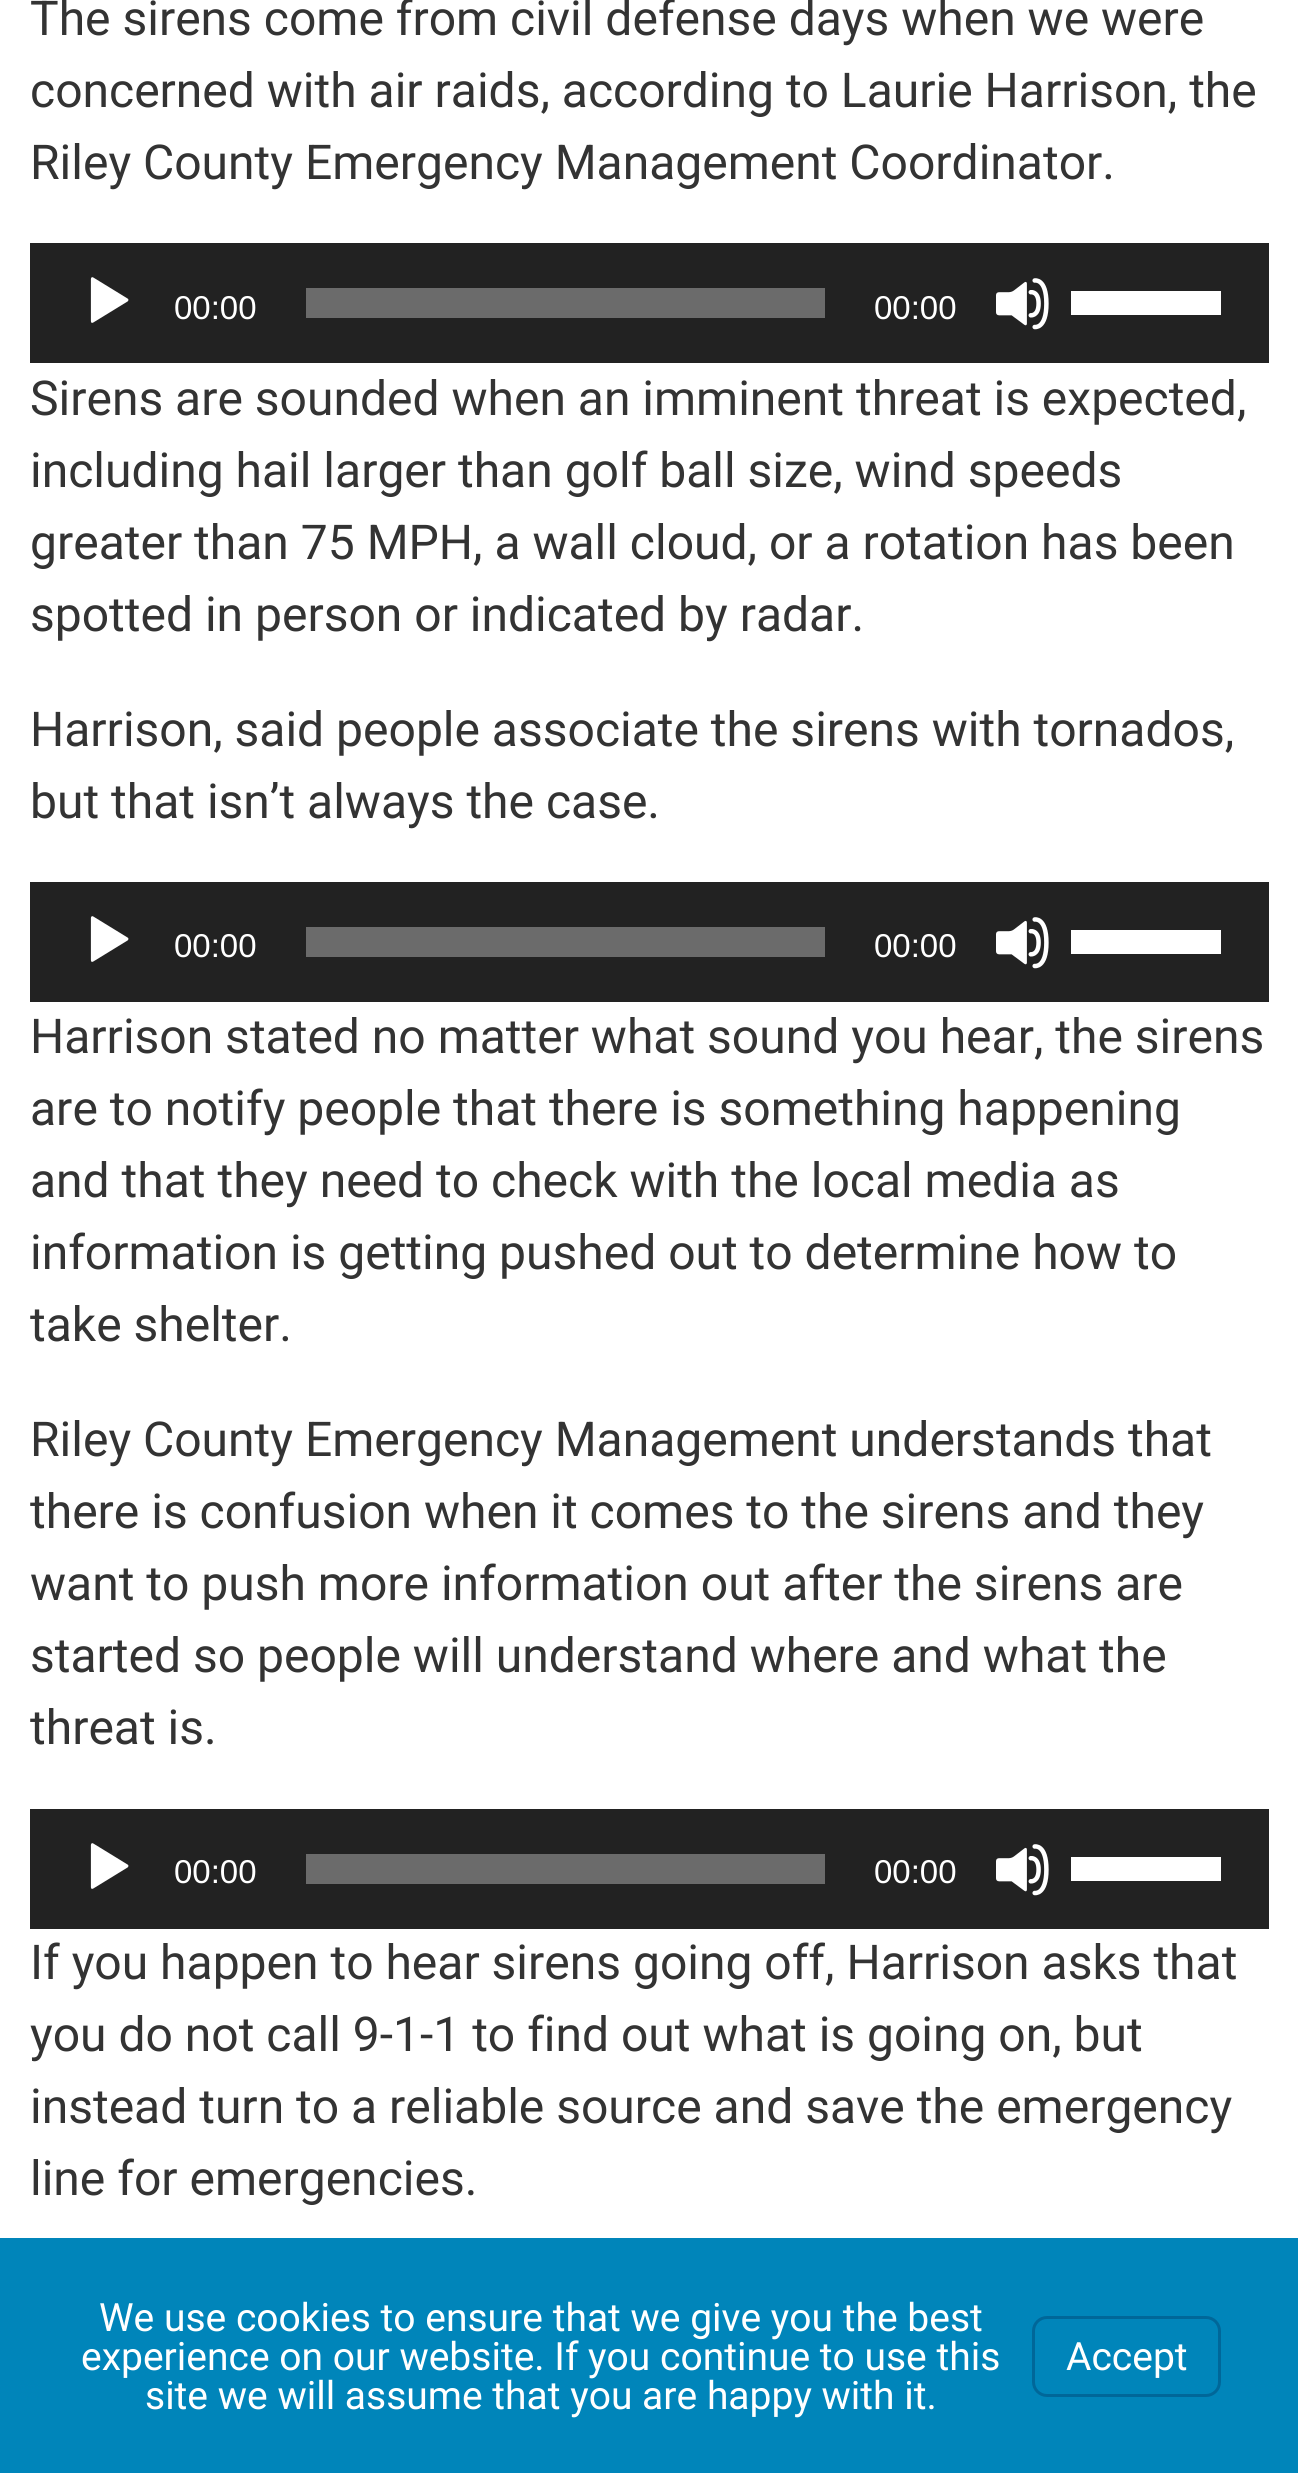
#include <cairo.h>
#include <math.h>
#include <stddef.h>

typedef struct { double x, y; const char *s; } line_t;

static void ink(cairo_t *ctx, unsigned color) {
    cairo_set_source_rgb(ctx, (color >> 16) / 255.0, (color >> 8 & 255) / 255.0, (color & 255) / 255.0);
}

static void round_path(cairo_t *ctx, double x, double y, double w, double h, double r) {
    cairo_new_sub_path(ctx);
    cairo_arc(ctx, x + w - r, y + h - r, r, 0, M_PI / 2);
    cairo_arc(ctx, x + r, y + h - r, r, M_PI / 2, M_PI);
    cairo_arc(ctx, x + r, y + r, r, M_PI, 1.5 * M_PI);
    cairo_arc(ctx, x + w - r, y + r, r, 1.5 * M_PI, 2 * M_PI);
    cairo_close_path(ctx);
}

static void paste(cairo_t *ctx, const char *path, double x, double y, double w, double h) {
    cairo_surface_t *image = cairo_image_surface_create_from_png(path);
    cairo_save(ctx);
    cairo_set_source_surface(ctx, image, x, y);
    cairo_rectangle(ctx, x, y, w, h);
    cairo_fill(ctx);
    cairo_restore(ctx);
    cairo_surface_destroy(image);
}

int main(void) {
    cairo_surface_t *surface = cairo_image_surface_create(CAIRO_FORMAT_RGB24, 1298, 2473);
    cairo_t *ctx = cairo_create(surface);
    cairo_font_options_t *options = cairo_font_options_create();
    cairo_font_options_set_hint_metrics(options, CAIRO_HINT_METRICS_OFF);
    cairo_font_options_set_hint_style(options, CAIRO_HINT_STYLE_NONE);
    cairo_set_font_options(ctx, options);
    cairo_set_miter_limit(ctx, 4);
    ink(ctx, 0xFFFFFF);
    cairo_paint(ctx);
    cairo_select_font_face(ctx, "Roboto", CAIRO_FONT_SLANT_NORMAL, CAIRO_FONT_WEIGHT_NORMAL);
    cairo_set_font_size(ctx, 48);
    ink(ctx, 0x333333);
    {
        static const line_t items[] = {
            {30, 35, "The sirens come from civil defense days when we were"},
            {30, 107, "concerned with air raids, according to Laurie Harrison, the"},
            {30, 179, "Riley County Emergency Management Coordinator."},
        };
        for (size_t i = 0; i < sizeof items / sizeof *items; i++) {
            cairo_move_to(ctx, items[i].x, items[i].y);
            cairo_show_text(ctx, items[i].s);
        }
    }
    ink(ctx, 0x222222);
    cairo_rectangle(ctx, 30, 243, 1239, 120);
    cairo_fill(ctx);
    paste(ctx, "media/1.png", 90, 277, 39, 46);
    cairo_select_font_face(ctx, "Liberation Sans", CAIRO_FONT_SLANT_NORMAL, CAIRO_FONT_WEIGHT_NORMAL);
    cairo_set_font_size(ctx, 33);
    ink(ctx, 0xFFFFFF);
    cairo_move_to(ctx, 174, 319);
    cairo_show_text(ctx, "00:00");
    ink(ctx, 0x6B6B6B);
    cairo_rectangle(ctx, 306, 288, 519, 30);
    cairo_fill(ctx);
    ink(ctx, 0xFFFFFF);
    cairo_move_to(ctx, 874, 319);
    cairo_show_text(ctx, "00:00");
    paste(ctx, "media/2.png", 996, 278, 53, 52);
    cairo_rectangle(ctx, 1071, 291, 150, 24);
    cairo_fill(ctx);
    cairo_select_font_face(ctx, "Roboto", CAIRO_FONT_SLANT_NORMAL, CAIRO_FONT_WEIGHT_NORMAL);
    cairo_set_font_size(ctx, 48);
    ink(ctx, 0x333333);
    {
        static const line_t items[] = {
            {30, 415, "Sirens are sounded when an imminent threat is expected,"},
            {30, 487, "including hail larger than golf ball size, wind speeds"},
            {30, 559, "greater than 75 MPH, a wall cloud, or a rotation has been"},
            {30, 631, "spotted in person or indicated by radar."},
            {30, 746, "Harrison, said people associate the sirens with tornados,"},
            {30, 818, "but that isn’t always the case."},
        };
        for (size_t i = 0; i < sizeof items / sizeof *items; i++) {
            cairo_move_to(ctx, items[i].x, items[i].y);
            cairo_show_text(ctx, items[i].s);
        }
    }
    ink(ctx, 0x222222);
    cairo_rectangle(ctx, 30, 882, 1239, 120);
    cairo_fill(ctx);
    paste(ctx, "media/1.png", 90, 916, 39, 46);
    cairo_select_font_face(ctx, "Liberation Sans", CAIRO_FONT_SLANT_NORMAL, CAIRO_FONT_WEIGHT_NORMAL);
    cairo_set_font_size(ctx, 33);
    ink(ctx, 0xFFFFFF);
    cairo_move_to(ctx, 174, 957);
    cairo_show_text(ctx, "00:00");
    ink(ctx, 0x6B6B6B);
    cairo_rectangle(ctx, 306, 927, 519, 30);
    cairo_fill(ctx);
    ink(ctx, 0xFFFFFF);
    cairo_move_to(ctx, 874, 957);
    cairo_show_text(ctx, "00:00");
    paste(ctx, "media/2.png", 996, 917, 53, 52);
    cairo_rectangle(ctx, 1071, 930, 150, 24);
    cairo_fill(ctx);
    cairo_select_font_face(ctx, "Roboto", CAIRO_FONT_SLANT_NORMAL, CAIRO_FONT_WEIGHT_NORMAL);
    cairo_set_font_size(ctx, 48);
    ink(ctx, 0x333333);
    {
        static const line_t items[] = {
            {30, 1053, "Harrison stated no matter what sound you hear, the sirens"},
            {30, 1125, "are to notify people that there is something happening"},
            {30, 1197, "and that they need to check with the local media as"},
            {30, 1269, "information is getting pushed out to determine how to"},
            {30, 1341, "take shelter."},
            {30, 1456, "Riley County Emergency Management understands that"},
            {30, 1528, "there is confusion when it comes to the sirens and they"},
            {30, 1600, "want to push more information out after the sirens are"},
            {30, 1672, "started so people will understand where and what the"},
            {30, 1744, "threat is."},
        };
        for (size_t i = 0; i < sizeof items / sizeof *items; i++) {
            cairo_move_to(ctx, items[i].x, items[i].y);
            cairo_show_text(ctx, items[i].s);
        }
    }
    ink(ctx, 0x222222);
    cairo_rectangle(ctx, 30, 1809, 1239, 120);
    cairo_fill(ctx);
    paste(ctx, "media/1.png", 90, 1843, 39, 46);
    cairo_select_font_face(ctx, "Liberation Sans", CAIRO_FONT_SLANT_NORMAL, CAIRO_FONT_WEIGHT_NORMAL);
    cairo_set_font_size(ctx, 33);
    ink(ctx, 0xFFFFFF);
    cairo_move_to(ctx, 174, 1883);
    cairo_show_text(ctx, "00:00");
    ink(ctx, 0x6B6B6B);
    cairo_rectangle(ctx, 306, 1854, 519, 30);
    cairo_fill(ctx);
    ink(ctx, 0xFFFFFF);
    cairo_move_to(ctx, 874, 1883);
    cairo_show_text(ctx, "00:00");
    paste(ctx, "media/2.png", 996, 1844, 53, 52);
    cairo_rectangle(ctx, 1071, 1857, 150, 24);
    cairo_fill(ctx);
    cairo_select_font_face(ctx, "Roboto", CAIRO_FONT_SLANT_NORMAL, CAIRO_FONT_WEIGHT_NORMAL);
    cairo_set_font_size(ctx, 48);
    ink(ctx, 0x333333);
    {
        static const line_t items[] = {
            {30, 1979, "If you happen to hear sirens going off, Harrison asks that"},
            {30, 2051, "you do not call 9-1-1 to find out what is going on, but"},
            {30, 2123, "instead turn to a reliable source and save the emergency"},
            {30, 2195, "line for emergencies."},
        };
        for (size_t i = 0; i < sizeof items / sizeof *items; i++) {
            cairo_move_to(ctx, items[i].x, items[i].y);
            cairo_show_text(ctx, items[i].s);
        }
    }
    ink(ctx, 0x0085BA);
    cairo_rectangle(ctx, 0, 2238, 1298, 235);
    cairo_fill(ctx);
    cairo_set_font_size(ctx, 39);
    ink(ctx, 0xFFFFFF);
    {
        static const line_t items[] = {
            {99, 2331, "We use cookies to ensure that we give you the best"},
            {81, 2370, "experience on our website. If you continue to use this"},
            {145, 2409, "site we will assume that you are happy with it."},
        };
        for (size_t i = 0; i < sizeof items / sizeof *items; i++) {
            cairo_move_to(ctx, items[i].x, items[i].y);
            cairo_show_text(ctx, items[i].s);
        }
    }
    round_path(ctx, 1033.5, 2317.5, 186, 78, 13.5);
    ink(ctx, 0x006799);
    cairo_set_line_width(ctx, 3);
    cairo_stroke(ctx);
    ink(ctx, 0xFFFFFF);
    cairo_move_to(ctx, 1066, 2370);
    cairo_show_text(ctx, "Accept");
    cairo_surface_write_to_png(surface, "image.png");
    cairo_font_options_destroy(options);
    cairo_destroy(ctx);
    cairo_surface_destroy(surface);
    return 0;
}
